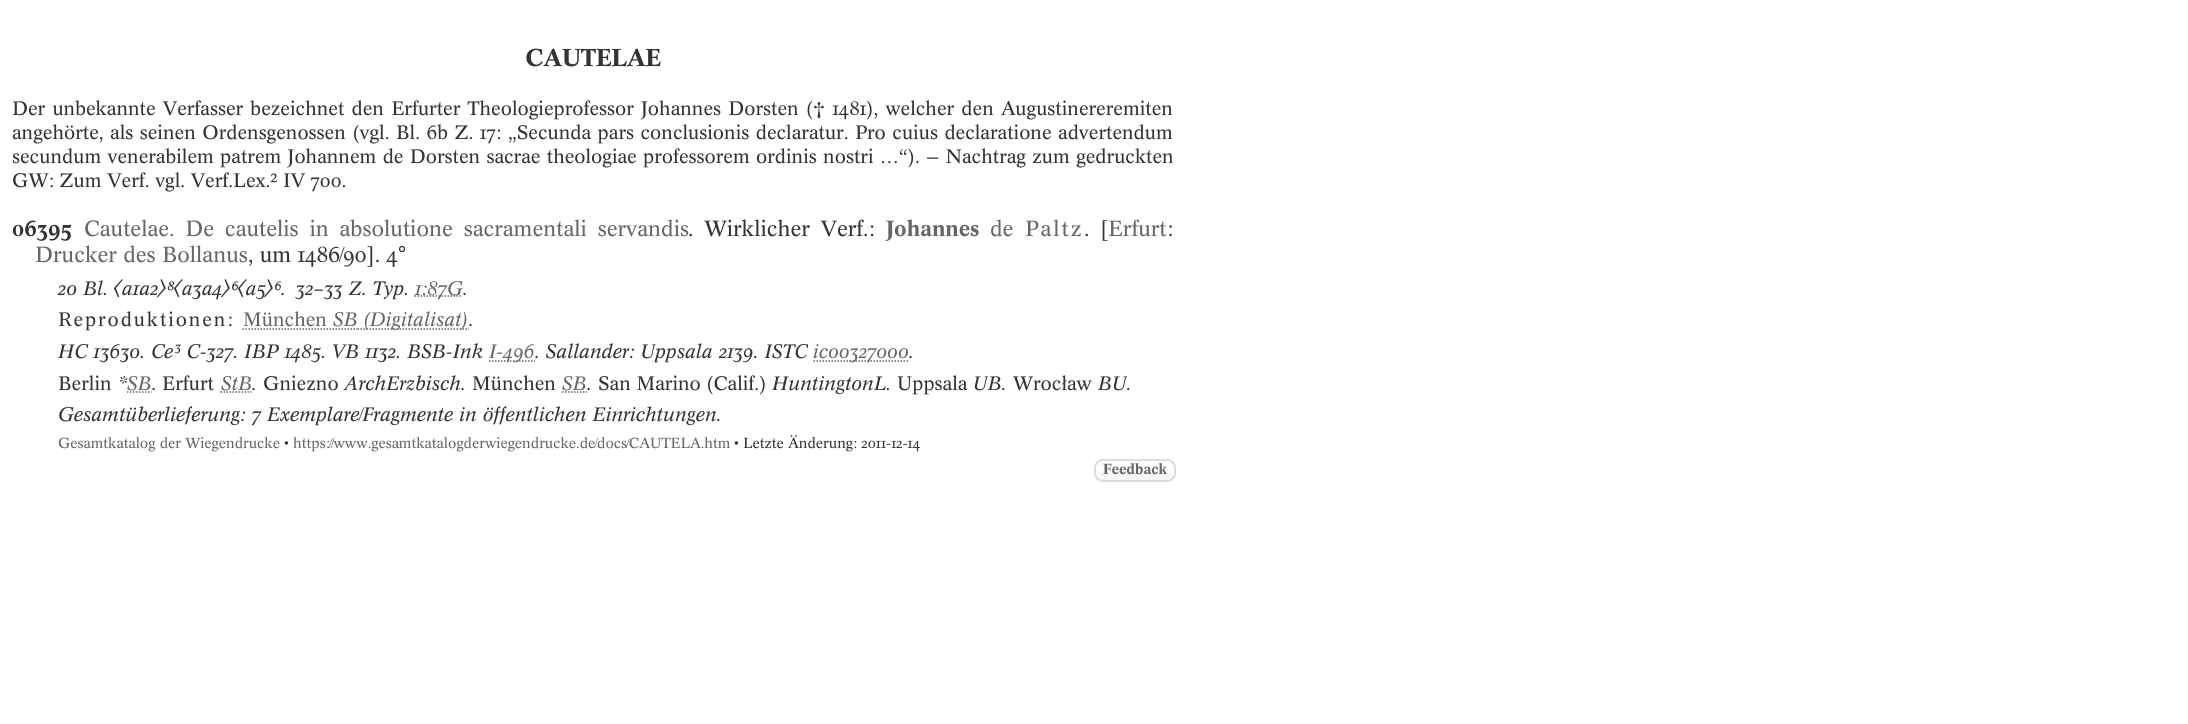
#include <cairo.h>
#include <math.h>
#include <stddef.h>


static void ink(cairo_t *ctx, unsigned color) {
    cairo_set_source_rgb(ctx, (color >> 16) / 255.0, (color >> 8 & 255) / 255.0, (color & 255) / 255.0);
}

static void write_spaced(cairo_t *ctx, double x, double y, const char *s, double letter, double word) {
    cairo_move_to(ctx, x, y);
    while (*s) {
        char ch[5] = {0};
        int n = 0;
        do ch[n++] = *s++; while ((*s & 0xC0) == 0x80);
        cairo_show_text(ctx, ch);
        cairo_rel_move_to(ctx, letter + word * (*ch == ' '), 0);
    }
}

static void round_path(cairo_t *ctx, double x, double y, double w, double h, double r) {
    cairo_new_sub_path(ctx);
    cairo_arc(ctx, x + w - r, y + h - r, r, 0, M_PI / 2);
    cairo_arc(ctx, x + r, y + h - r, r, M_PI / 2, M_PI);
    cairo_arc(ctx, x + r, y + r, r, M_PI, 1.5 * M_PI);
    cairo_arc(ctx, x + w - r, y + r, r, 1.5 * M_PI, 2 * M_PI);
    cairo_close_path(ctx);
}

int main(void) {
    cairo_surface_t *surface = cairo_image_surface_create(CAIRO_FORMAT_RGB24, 2188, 724);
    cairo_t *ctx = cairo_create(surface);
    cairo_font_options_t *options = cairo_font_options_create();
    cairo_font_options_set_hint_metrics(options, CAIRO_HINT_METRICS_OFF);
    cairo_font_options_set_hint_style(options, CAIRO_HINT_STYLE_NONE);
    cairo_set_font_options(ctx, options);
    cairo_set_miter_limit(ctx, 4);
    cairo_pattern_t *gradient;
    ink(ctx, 0xFFFFFF);
    cairo_paint(ctx);
    cairo_select_font_face(ctx, "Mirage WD", CAIRO_FONT_SLANT_NORMAL, CAIRO_FONT_WEIGHT_BOLD);
    cairo_set_font_size(ctx, 24);
    ink(ctx, 0x333333);
    cairo_move_to(ctx, 525, 66);
    cairo_show_text(ctx, "CAUTELAE");
    cairo_select_font_face(ctx, "Mirage WD", CAIRO_FONT_SLANT_NORMAL, CAIRO_FONT_WEIGHT_NORMAL);
    cairo_set_font_size(ctx, 19.2);
    write_spaced(ctx, 12, 115, "Der unbekannte Verfasser bezeichnet den Erfurter Theologieprofessor Johannes Dorsten († 1481), welcher den Augustinereremiten", 0, 1.6);
    write_spaced(ctx, 12, 139, "angehörte, als seinen Ordensgenossen (vgl. Bl. 6b Z. 17: „Secunda pars conclusionis declaratur. Pro cuius declaratione advertendum", 0, 0.9);
    write_spaced(ctx, 12, 163, "secundum venerabilem patrem Johannem de Dorsten sacrae theologiae professorem ordinis nostri …“). — Nachtrag zum gedruckten", 0, 0.7);
    cairo_move_to(ctx, 12, 187);
    cairo_show_text(ctx, "GW: Zum Verf. vgl. Verf.Lex.² IV 700.");
    cairo_select_font_face(ctx, "Mirage WD", CAIRO_FONT_SLANT_NORMAL, CAIRO_FONT_WEIGHT_BOLD);
    cairo_set_font_size(ctx, 21.6);
    cairo_move_to(ctx, 12, 236);
    cairo_show_text(ctx, "06395");
    cairo_select_font_face(ctx, "Mirage WD", CAIRO_FONT_SLANT_NORMAL, CAIRO_FONT_WEIGHT_NORMAL);
    ink(ctx, 0x666666);
    write_spaced(ctx, 84, 236, "Cautelae. De cautelis in absolutione sacramentali servandis", 0, 4.5);
    ink(ctx, 0x333333);
    write_spaced(ctx, 688, 236, ". Wirklicher Verf.:", 0, 4.5);
    cairo_select_font_face(ctx, "Mirage WD", CAIRO_FONT_SLANT_NORMAL, CAIRO_FONT_WEIGHT_BOLD);
    ink(ctx, 0x666666);
    cairo_move_to(ctx, 886, 236);
    cairo_show_text(ctx, "Johannes");
    cairo_select_font_face(ctx, "Mirage WD", CAIRO_FONT_SLANT_NORMAL, CAIRO_FONT_WEIGHT_NORMAL);
    cairo_move_to(ctx, 990, 236);
    cairo_show_text(ctx, "de");
    write_spaced(ctx, 1025, 236, "Paltz", 2, 0);
    ink(ctx, 0x333333);
    cairo_move_to(ctx, 1084, 236);
    cairo_show_text(ctx, ".");
    cairo_move_to(ctx, 1100, 236);
    cairo_show_text(ctx, "[");
    ink(ctx, 0x666666);
    cairo_move_to(ctx, 1108, 236);
    cairo_show_text(ctx, "Erfurt");
    ink(ctx, 0x333333);
    cairo_move_to(ctx, 1167, 236);
    cairo_show_text(ctx, ":");
    ink(ctx, 0x666666);
    cairo_move_to(ctx, 35, 262);
    cairo_show_text(ctx, "Drucker des Bollanus");
    ink(ctx, 0x333333);
    cairo_move_to(ctx, 248, 262);
    cairo_show_text(ctx, ", um 1486/90]. 4°");
    cairo_select_font_face(ctx, "Mirage WD", CAIRO_FONT_SLANT_ITALIC, CAIRO_FONT_WEIGHT_NORMAL);
    cairo_set_font_size(ctx, 19.2);
    cairo_move_to(ctx, 58, 295);
    cairo_show_text(ctx, "20 Bl. 〈a1a2〉⁸〈a3a4〉⁶〈a5〉⁶.");
    cairo_move_to(ctx, 296, 295);
    cairo_show_text(ctx, "32–33 Z. Typ.");
    cairo_new_path(ctx);
    cairo_move_to(ctx, 414.5, 296);
    cairo_line_to(ctx, 462.5, 296);
    ink(ctx, 0x666666);
    cairo_set_line_width(ctx, 1.5);
    cairo_set_dash(ctx, (double[]){1.5, 1.5}, 2, 0);
    cairo_stroke(ctx);
    cairo_move_to(ctx, 415, 295);
    cairo_show_text(ctx, "1:87G");
    ink(ctx, 0x333333);
    cairo_move_to(ctx, 463, 295);
    cairo_show_text(ctx, ".");
    cairo_select_font_face(ctx, "Mirage WD", CAIRO_FONT_SLANT_NORMAL, CAIRO_FONT_WEIGHT_NORMAL);
    write_spaced(ctx, 58, 326, "Reproduktionen:", 1.9, 0);
    ink(ctx, 0x666666);
    cairo_move_to(ctx, 243, 326);
    cairo_show_text(ctx, "München");
    cairo_new_path(ctx);
    cairo_move_to(ctx, 242.5, 329);
    cairo_line_to(ctx, 326.5, 329);
    cairo_stroke(ctx);
    cairo_new_path(ctx);
    cairo_move_to(ctx, 326.5, 329);
    cairo_line_to(ctx, 328, 329);
    cairo_move_to(ctx, 329.5, 329);
    cairo_line_to(ctx, 331, 329);
    cairo_set_dash(ctx, NULL, 0, 0);
    cairo_stroke(ctx);
    cairo_select_font_face(ctx, "Mirage WD", CAIRO_FONT_SLANT_ITALIC, CAIRO_FONT_WEIGHT_NORMAL);
    cairo_move_to(ctx, 333, 326);
    cairo_show_text(ctx, "SB");
    cairo_new_path(ctx);
    cairo_move_to(ctx, 332.5, 329);
    cairo_line_to(ctx, 357.5, 329);
    cairo_set_dash(ctx, (double[]){1.5, 1.5}, 2, 0);
    cairo_stroke(ctx);
    cairo_new_path(ctx);
    cairo_move_to(ctx, 357.5, 329);
    cairo_line_to(ctx, 469, 329);
    cairo_stroke(ctx);
    cairo_move_to(ctx, 363, 326);
    cairo_show_text(ctx, "(Digitalisat)");
    ink(ctx, 0x333333);
    cairo_move_to(ctx, 469, 326);
    cairo_show_text(ctx, ".");
    cairo_move_to(ctx, 58, 358);
    cairo_show_text(ctx, "HC 13630. Ce³ C-327. IBP 1485. VB 1132. BSB-Ink");
    cairo_new_path(ctx);
    cairo_move_to(ctx, 489, 361);
    cairo_line_to(ctx, 535, 361);
    ink(ctx, 0x666666);
    cairo_stroke(ctx);
    cairo_move_to(ctx, 489, 358);
    cairo_show_text(ctx, "I-496");
    ink(ctx, 0x333333);
    cairo_move_to(ctx, 535, 358);
    cairo_show_text(ctx, ". Sallander: Uppsala 2139. ISTC");
    cairo_new_path(ctx);
    cairo_move_to(ctx, 813.5, 361);
    cairo_line_to(ctx, 909.5, 361);
    ink(ctx, 0x666666);
    cairo_stroke(ctx);
    cairo_move_to(ctx, 813, 358);
    cairo_show_text(ctx, "ic00327000");
    ink(ctx, 0x333333);
    cairo_move_to(ctx, 909, 358);
    cairo_show_text(ctx, ".");
    cairo_select_font_face(ctx, "Mirage WD", CAIRO_FONT_SLANT_NORMAL, CAIRO_FONT_WEIGHT_NORMAL);
    cairo_move_to(ctx, 58, 390);
    cairo_show_text(ctx, "Berlin");
    cairo_select_font_face(ctx, "Mirage WD", CAIRO_FONT_SLANT_ITALIC, CAIRO_FONT_WEIGHT_NORMAL);
    cairo_move_to(ctx, 118, 390);
    cairo_show_text(ctx, "*");
    ink(ctx, 0x666666);
    cairo_move_to(ctx, 127, 390);
    cairo_show_text(ctx, "SB");
    cairo_new_path(ctx);
    cairo_move_to(ctx, 127, 392);
    cairo_line_to(ctx, 151.5, 392);
    cairo_stroke(ctx);
    ink(ctx, 0x333333);
    cairo_move_to(ctx, 152, 390);
    cairo_show_text(ctx, ".");
    cairo_select_font_face(ctx, "Mirage WD", CAIRO_FONT_SLANT_NORMAL, CAIRO_FONT_WEIGHT_NORMAL);
    cairo_move_to(ctx, 162, 390);
    cairo_show_text(ctx, "Erfurt");
    cairo_select_font_face(ctx, "Mirage WD", CAIRO_FONT_SLANT_ITALIC, CAIRO_FONT_WEIGHT_NORMAL);
    ink(ctx, 0x666666);
    cairo_move_to(ctx, 221, 390);
    cairo_show_text(ctx, "StB");
    cairo_new_path(ctx);
    cairo_move_to(ctx, 220.5, 392);
    cairo_line_to(ctx, 251.5, 392);
    cairo_stroke(ctx);
    ink(ctx, 0x333333);
    cairo_move_to(ctx, 252, 390);
    cairo_show_text(ctx, ".");
    cairo_select_font_face(ctx, "Mirage WD", CAIRO_FONT_SLANT_NORMAL, CAIRO_FONT_WEIGHT_NORMAL);
    cairo_move_to(ctx, 263, 390);
    cairo_show_text(ctx, "Gniezno");
    cairo_select_font_face(ctx, "Mirage WD", CAIRO_FONT_SLANT_ITALIC, CAIRO_FONT_WEIGHT_NORMAL);
    cairo_move_to(ctx, 344, 390);
    cairo_show_text(ctx, "ArchErzbisch.");
    cairo_select_font_face(ctx, "Mirage WD", CAIRO_FONT_SLANT_NORMAL, CAIRO_FONT_WEIGHT_NORMAL);
    cairo_move_to(ctx, 472, 390);
    cairo_show_text(ctx, "München");
    cairo_select_font_face(ctx, "Mirage WD", CAIRO_FONT_SLANT_ITALIC, CAIRO_FONT_WEIGHT_NORMAL);
    ink(ctx, 0x666666);
    cairo_move_to(ctx, 562, 390);
    cairo_show_text(ctx, "SB");
    cairo_new_path(ctx);
    cairo_move_to(ctx, 562, 392);
    cairo_line_to(ctx, 587, 392);
    cairo_stroke(ctx);
    ink(ctx, 0x333333);
    cairo_move_to(ctx, 587, 390);
    cairo_show_text(ctx, ".");
    cairo_select_font_face(ctx, "Mirage WD", CAIRO_FONT_SLANT_NORMAL, CAIRO_FONT_WEIGHT_NORMAL);
    cairo_move_to(ctx, 598, 390);
    cairo_show_text(ctx, "San Marino (Calif.)");
    cairo_select_font_face(ctx, "Mirage WD", CAIRO_FONT_SLANT_ITALIC, CAIRO_FONT_WEIGHT_NORMAL);
    cairo_move_to(ctx, 772, 390);
    cairo_show_text(ctx, "HuntingtonL.");
    cairo_select_font_face(ctx, "Mirage WD", CAIRO_FONT_SLANT_NORMAL, CAIRO_FONT_WEIGHT_NORMAL);
    cairo_move_to(ctx, 897, 390);
    cairo_show_text(ctx, "Uppsala");
    cairo_select_font_face(ctx, "Mirage WD", CAIRO_FONT_SLANT_ITALIC, CAIRO_FONT_WEIGHT_NORMAL);
    cairo_move_to(ctx, 973, 390);
    cairo_show_text(ctx, "UB.");
    cairo_select_font_face(ctx, "Mirage WD", CAIRO_FONT_SLANT_NORMAL, CAIRO_FONT_WEIGHT_NORMAL);
    cairo_move_to(ctx, 1013, 390);
    cairo_show_text(ctx, "Wrocław");
    cairo_select_font_face(ctx, "Mirage WD", CAIRO_FONT_SLANT_ITALIC, CAIRO_FONT_WEIGHT_NORMAL);
    cairo_move_to(ctx, 1098, 390);
    cairo_show_text(ctx, "BU.");
    cairo_move_to(ctx, 58, 421);
    cairo_show_text(ctx, "Gesamtüberlieferung: 7 Exemplare/Fragmente in öffentlichen Einrichtungen.");
    cairo_select_font_face(ctx, "Mirage WD", CAIRO_FONT_SLANT_NORMAL, CAIRO_FONT_WEIGHT_NORMAL);
    cairo_set_font_size(ctx, 14.4);
    ink(ctx, 0x666666);
    cairo_move_to(ctx, 58, 448);
    cairo_show_text(ctx, "Gesamtkatalog der Wiegendrucke");
    ink(ctx, 0x333333);
    cairo_move_to(ctx, 284, 448);
    cairo_show_text(ctx, "•");
    ink(ctx, 0x666666);
    cairo_move_to(ctx, 293, 448);
    cairo_show_text(ctx, "https://www.gesamtkatalogderwiegendrucke.de/docs/CAUTELA.htm");
    ink(ctx, 0x333333);
    cairo_move_to(ctx, 734, 448);
    cairo_show_text(ctx, "• Letzte Änderung: 2011-12-14");
    cairo_save(ctx);
    round_path(ctx, 1094, 459, 82, 23, 9);
    cairo_clip(ctx);
    gradient = cairo_pattern_create_linear(1135, 461, 1135, 480);
    cairo_pattern_add_color_stop_rgba(gradient, 0.05, 1, 1, 1, 1);
    cairo_pattern_add_color_stop_rgba(gradient, 1, 0.965, 0.965, 0.965, 1);
    cairo_set_source(ctx, gradient);
    cairo_pattern_destroy(gradient);
    cairo_rectangle(ctx, 1094, 461, 82, 19);
    cairo_fill(ctx);
    cairo_restore(ctx);
    ink(ctx, 0xFFFFFF);
    cairo_new_path(ctx);
    cairo_move_to(ctx, 1102, 471);
    cairo_line_to(ctx, 1167, 471);
    cairo_curve_to(ctx, 1170, 471, 1173, 473, 1174, 476);
    cairo_curve_to(ctx, 1175, 474, 1175, 471, 1175, 469);
    cairo_curve_to(ctx, 1174, 459, 1163, 461, 1156, 461);
    cairo_line_to(ctx, 1114, 461);
    cairo_curve_to(ctx, 1107, 461, 1096, 459, 1095, 469);
    cairo_line_to(ctx, 1096, 475);
    cairo_curve_to(ctx, 1097, 473, 1099, 471, 1102, 471);
    cairo_close_path(ctx);
    cairo_fill(ctx);
    round_path(ctx, 1095, 460, 80, 21, 8);
    ink(ctx, 0xDCDCDC);
    cairo_set_line_width(ctx, 2);
    cairo_set_dash(ctx, NULL, 0, 0);
    cairo_stroke(ctx);
    cairo_select_font_face(ctx, "Mirage WD", CAIRO_FONT_SLANT_NORMAL, CAIRO_FONT_WEIGHT_BOLD);
    ink(ctx, 0x666666);
    cairo_move_to(ctx, 1103, 474);
    cairo_show_text(ctx, "Feedback");
    cairo_surface_write_to_png(surface, "image.png");
    cairo_font_options_destroy(options);
    cairo_destroy(ctx);
    cairo_surface_destroy(surface);
    return 0;
}
